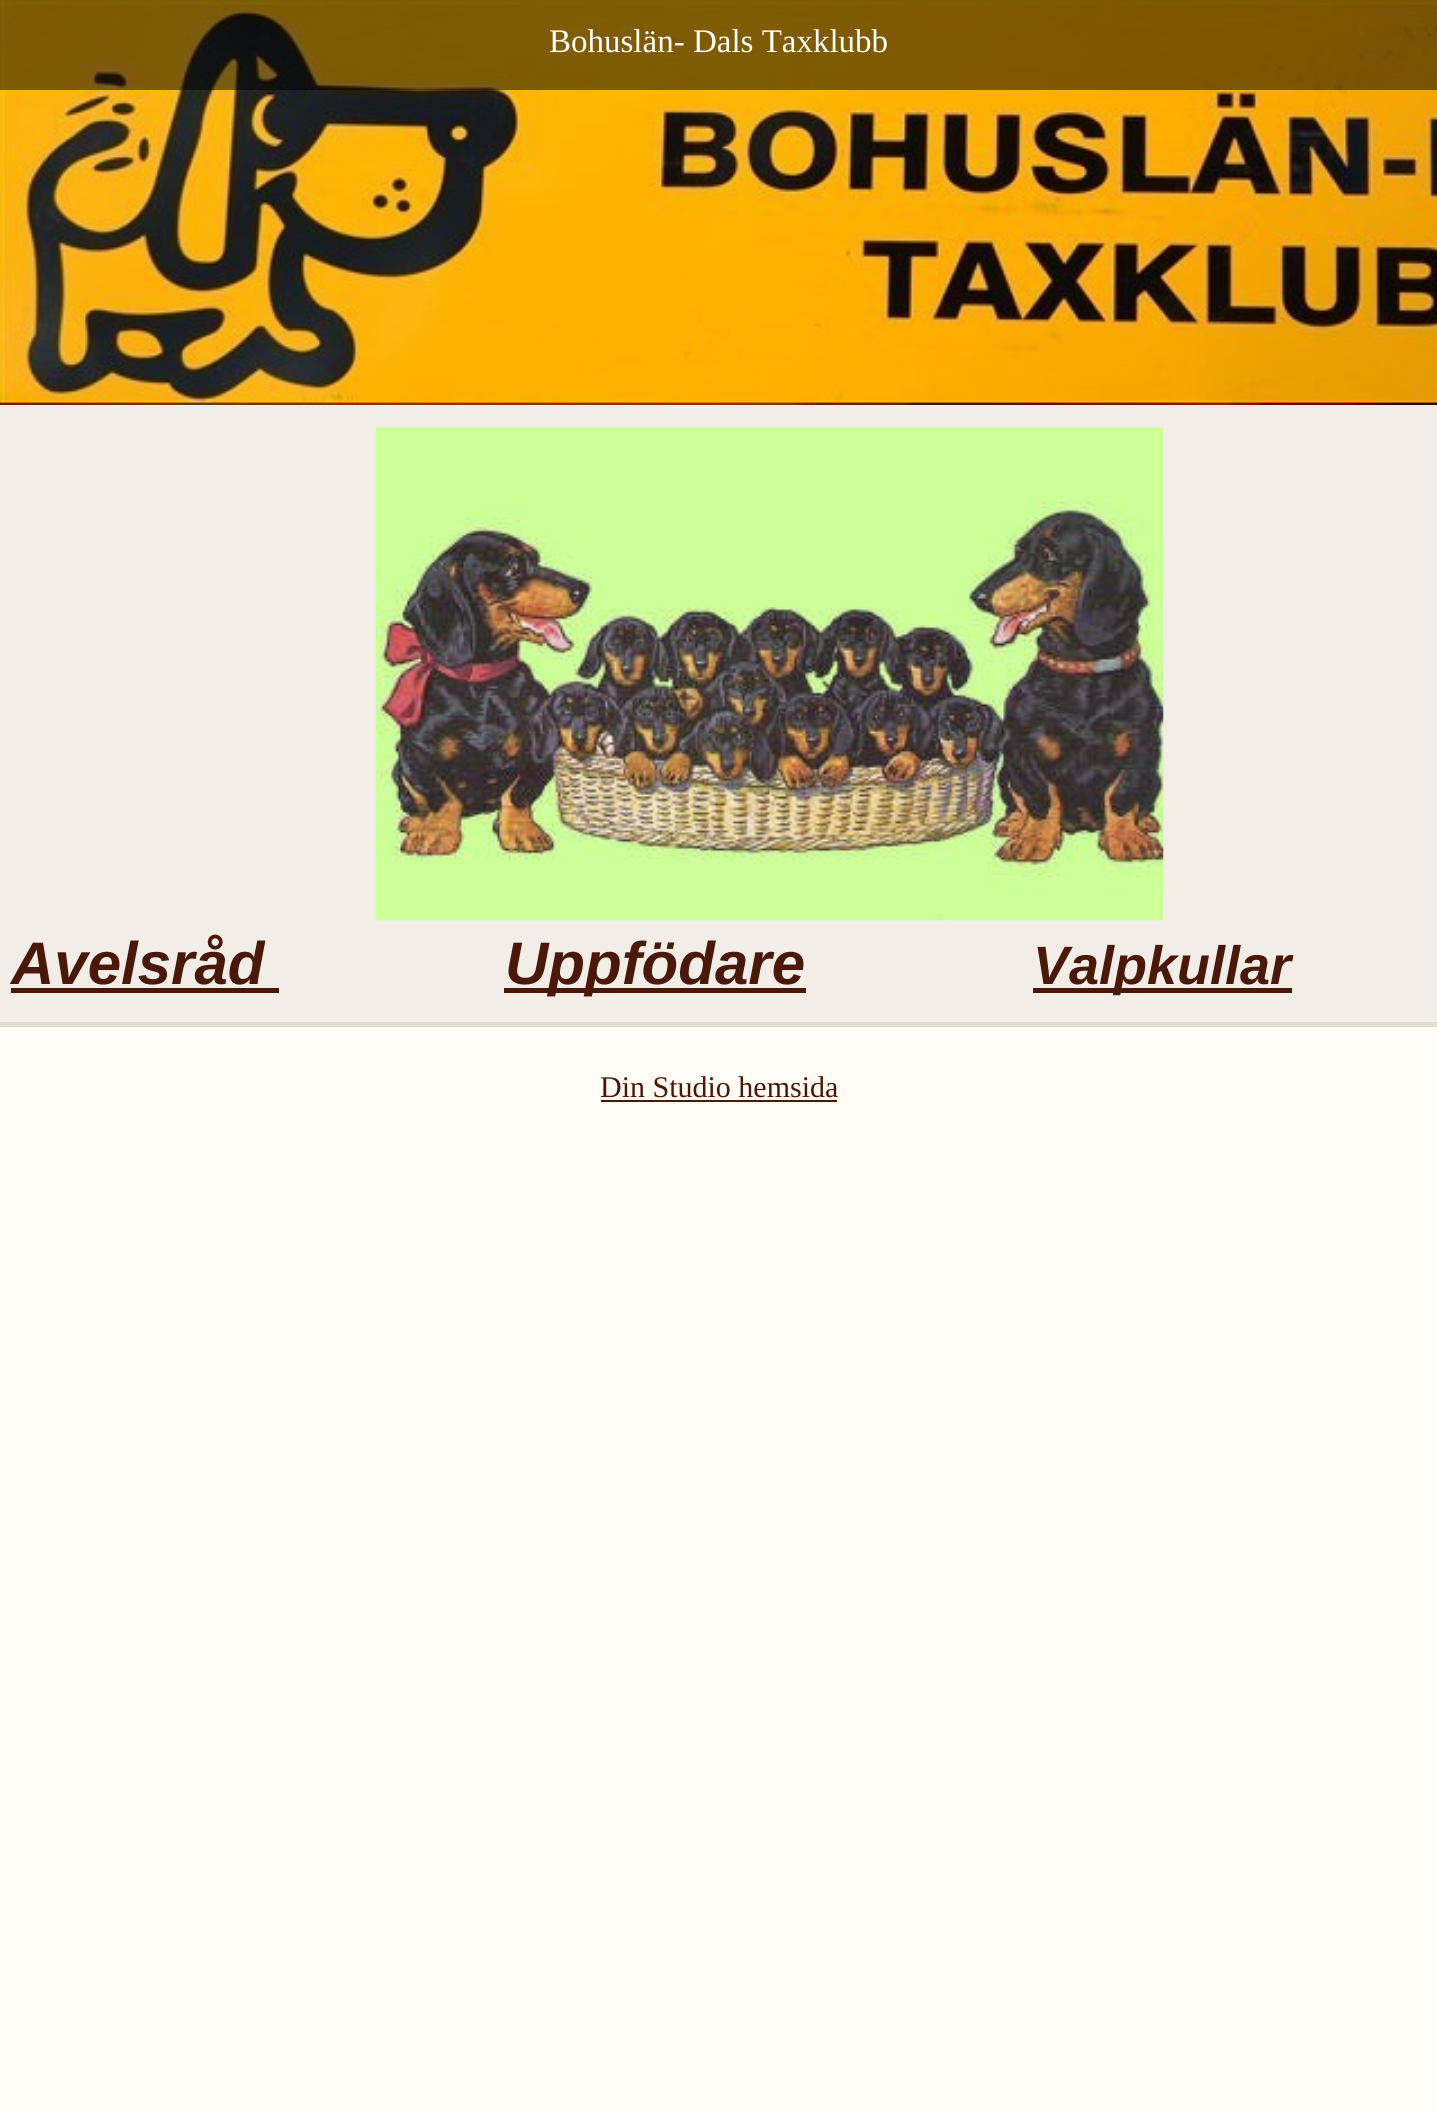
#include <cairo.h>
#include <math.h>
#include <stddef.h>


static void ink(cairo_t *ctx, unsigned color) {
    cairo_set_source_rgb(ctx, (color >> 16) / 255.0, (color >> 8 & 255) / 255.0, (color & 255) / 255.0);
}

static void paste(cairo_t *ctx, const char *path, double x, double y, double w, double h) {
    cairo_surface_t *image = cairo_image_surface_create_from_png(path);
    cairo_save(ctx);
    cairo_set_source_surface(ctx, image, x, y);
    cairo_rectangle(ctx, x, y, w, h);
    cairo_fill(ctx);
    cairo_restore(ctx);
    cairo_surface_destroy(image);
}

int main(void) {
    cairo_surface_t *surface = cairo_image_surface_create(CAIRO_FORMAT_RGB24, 1437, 2111);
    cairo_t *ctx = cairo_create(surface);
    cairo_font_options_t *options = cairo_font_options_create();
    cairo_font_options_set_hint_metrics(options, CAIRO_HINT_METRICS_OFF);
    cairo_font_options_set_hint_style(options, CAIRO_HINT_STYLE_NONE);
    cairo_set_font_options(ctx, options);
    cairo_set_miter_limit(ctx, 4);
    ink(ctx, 0xFFFCF6);
    cairo_paint(ctx);
    paste(ctx, "media/1.png", 0, 402, 1437, 3);
    paste(ctx, "media/2.png", 0, 0, 1437, 403);
    cairo_set_source_rgba(ctx, 0, 0, 0, 0.5);
    cairo_rectangle(ctx, 0, 0, 1437, 90);
    cairo_fill(ctx);
    cairo_select_font_face(ctx, "Liberation Serif", CAIRO_FONT_SLANT_NORMAL, CAIRO_FONT_WEIGHT_NORMAL);
    cairo_set_font_size(ctx, 33);
    ink(ctx, 0xFFFFFF);
    cairo_move_to(ctx, 549, 52);
    cairo_show_text(ctx, "Bohuslän- Dals Taxklubb");
    ink(ctx, 0xF2EEE7);
    cairo_rectangle(ctx, 0, 405, 1437, 617);
    cairo_fill(ctx);
    paste(ctx, "media/3.png", 375, 427, 789, 494);
    cairo_select_font_face(ctx, "Liberation Sans", CAIRO_FONT_SLANT_ITALIC, CAIRO_FONT_WEIGHT_BOLD);
    cairo_set_font_size(ctx, 60);
    ink(ctx, 0x4A1808);
    cairo_move_to(ctx, 11, 984);
    cairo_show_text(ctx, "Avelsråd");
    cairo_rectangle(ctx, 11, 988, 268, 5);
    cairo_fill(ctx);
    cairo_rectangle(ctx, 504, 988, 302, 5);
    cairo_fill(ctx);
    cairo_move_to(ctx, 505, 984);
    cairo_show_text(ctx, "Uppfödare");
    cairo_rectangle(ctx, 1033, 988, 259, 5);
    cairo_fill(ctx);
    cairo_set_font_size(ctx, 54);
    cairo_move_to(ctx, 1033, 984);
    cairo_show_text(ctx, "Valpkullar");
    ink(ctx, 0xE5DDCF);
    cairo_rectangle(ctx, 0, 1022, 1437, 5);
    cairo_fill(ctx);
    cairo_select_font_face(ctx, "Liberation Serif", CAIRO_FONT_SLANT_NORMAL, CAIRO_FONT_WEIGHT_NORMAL);
    cairo_set_font_size(ctx, 30);
    ink(ctx, 0x4A1808);
    cairo_move_to(ctx, 600, 1097);
    cairo_show_text(ctx, "Din Studio hemsida");
    cairo_rectangle(ctx, 601, 1100, 236, 2);
    cairo_fill(ctx);
    cairo_surface_write_to_png(surface, "image.png");
    cairo_font_options_destroy(options);
    cairo_destroy(ctx);
    cairo_surface_destroy(surface);
    return 0;
}
